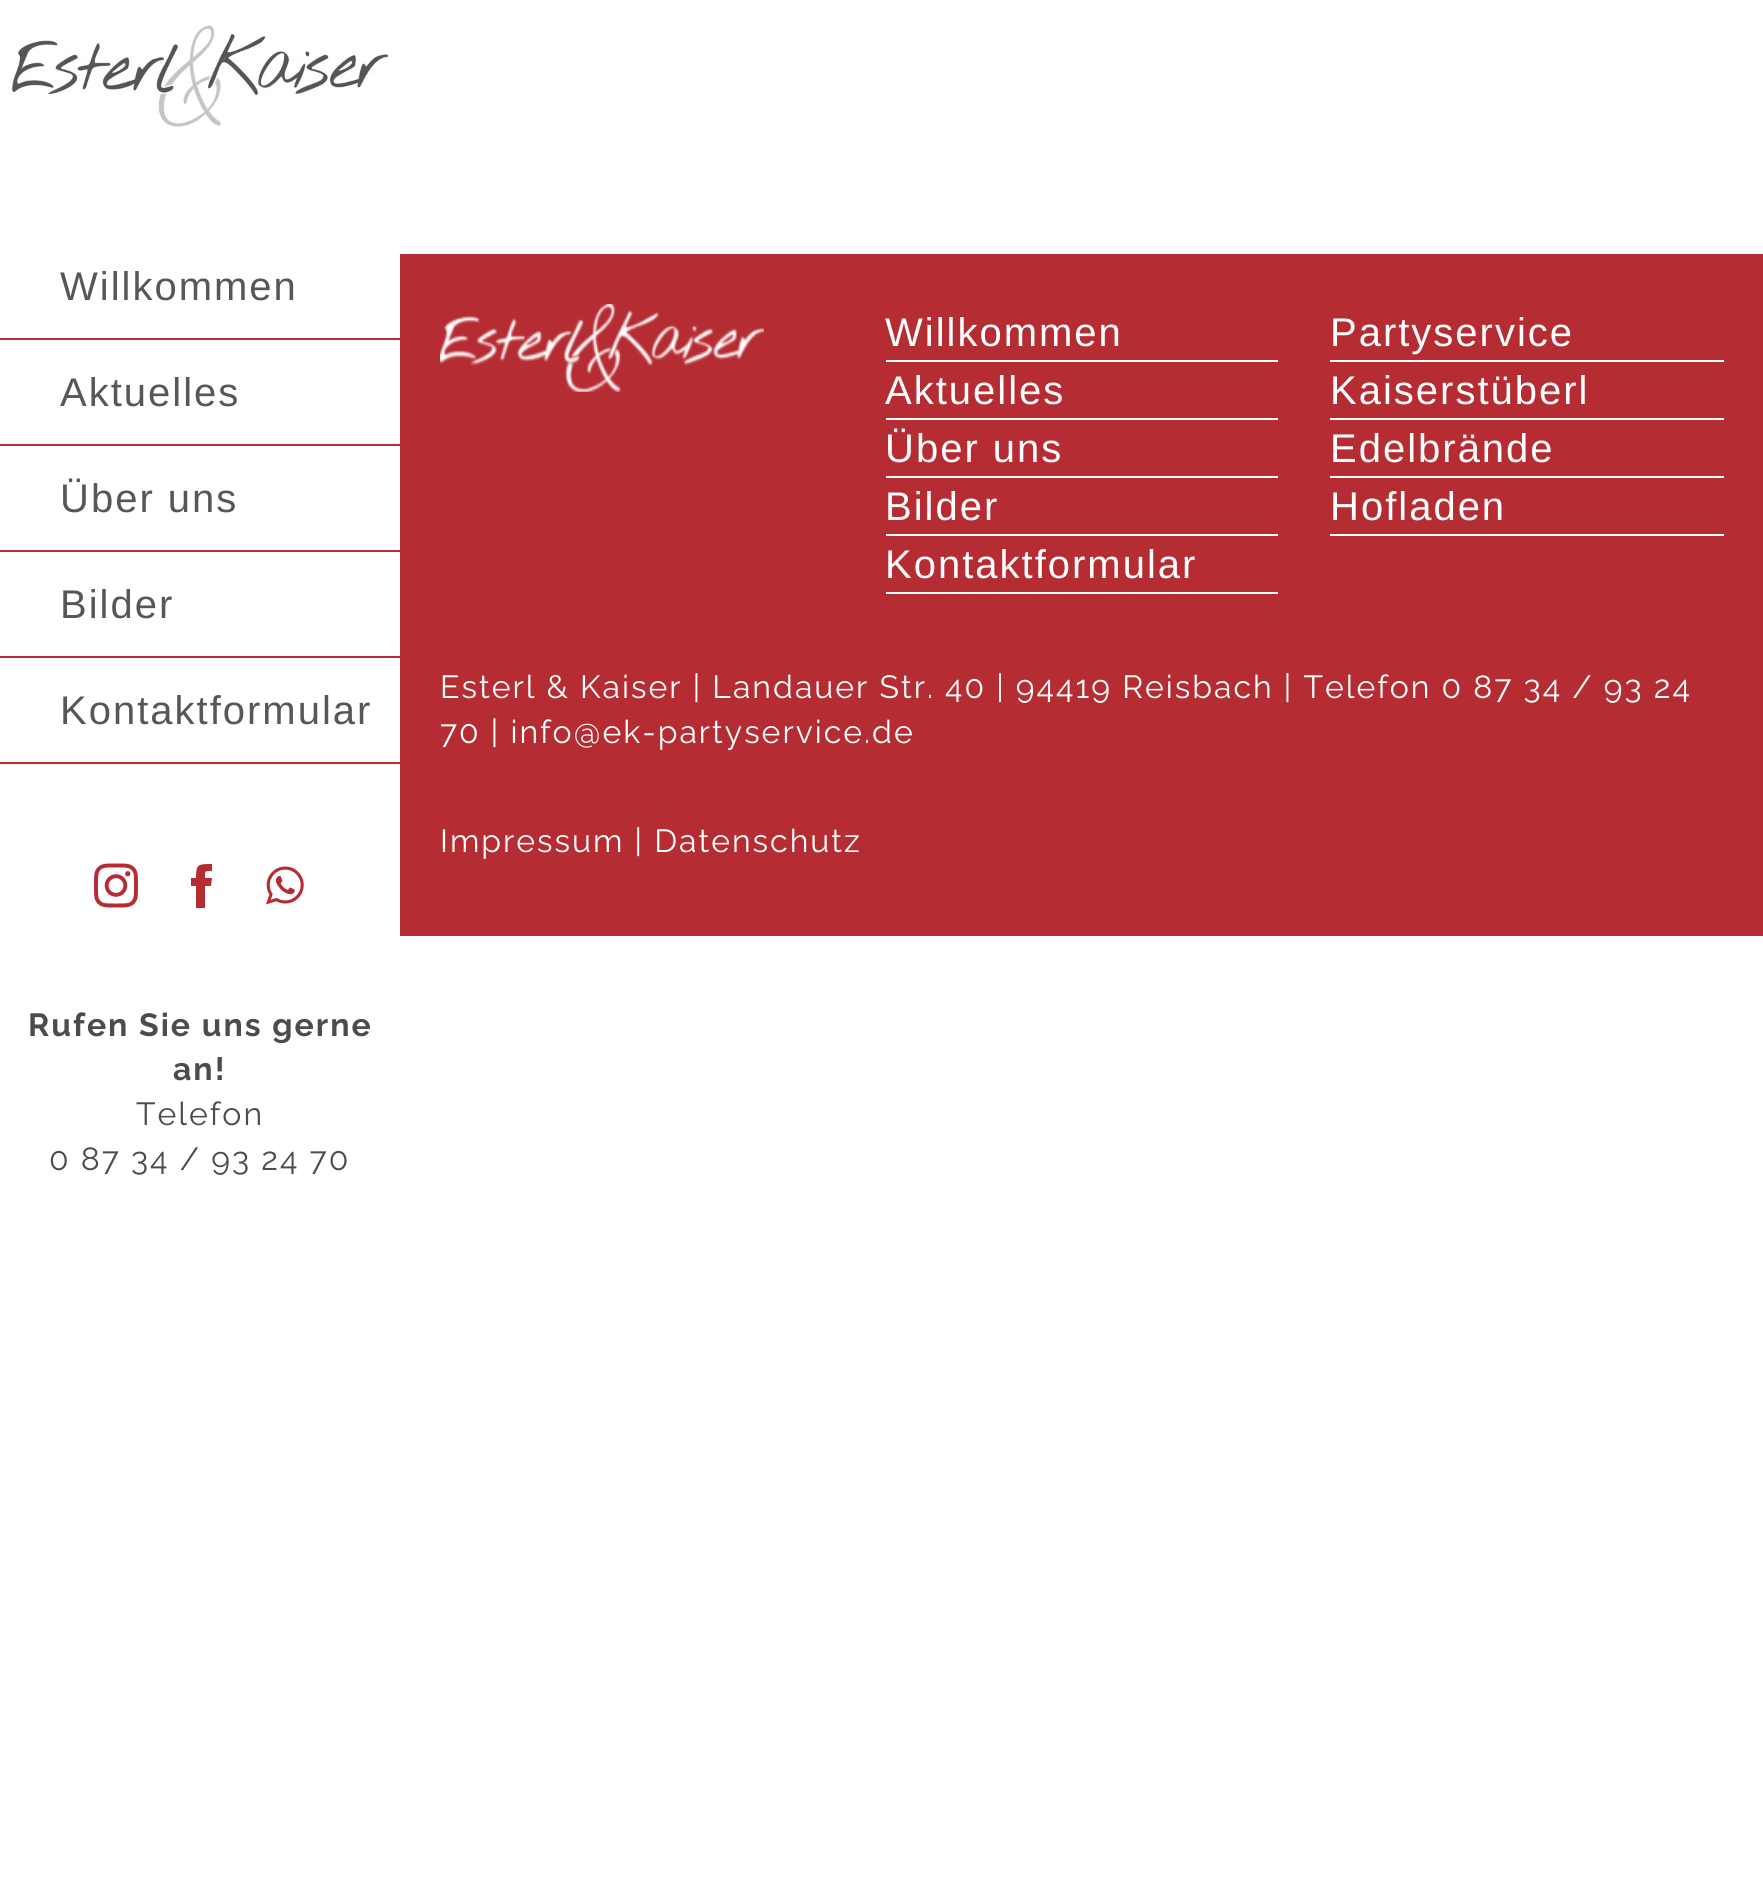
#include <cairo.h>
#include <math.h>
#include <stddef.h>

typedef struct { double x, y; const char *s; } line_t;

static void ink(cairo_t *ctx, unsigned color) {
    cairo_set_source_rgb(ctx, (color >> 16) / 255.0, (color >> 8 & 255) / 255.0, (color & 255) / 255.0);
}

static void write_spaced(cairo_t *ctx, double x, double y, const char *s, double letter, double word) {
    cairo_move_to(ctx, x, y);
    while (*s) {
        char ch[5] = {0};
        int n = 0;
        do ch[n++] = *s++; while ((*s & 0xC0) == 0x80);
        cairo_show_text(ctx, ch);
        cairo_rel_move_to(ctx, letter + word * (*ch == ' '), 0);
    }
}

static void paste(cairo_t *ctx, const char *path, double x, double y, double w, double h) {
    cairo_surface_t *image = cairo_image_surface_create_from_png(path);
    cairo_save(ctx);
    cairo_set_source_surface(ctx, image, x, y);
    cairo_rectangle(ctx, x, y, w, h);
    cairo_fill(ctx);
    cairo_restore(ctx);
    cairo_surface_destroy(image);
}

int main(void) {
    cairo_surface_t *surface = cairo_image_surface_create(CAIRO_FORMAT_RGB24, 1763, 1880);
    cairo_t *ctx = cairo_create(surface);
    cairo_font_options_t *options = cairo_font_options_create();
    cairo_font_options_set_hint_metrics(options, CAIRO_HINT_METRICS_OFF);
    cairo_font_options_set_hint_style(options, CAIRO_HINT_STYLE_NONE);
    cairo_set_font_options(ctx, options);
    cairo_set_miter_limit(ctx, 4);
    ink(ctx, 0xFFFFFF);
    cairo_paint(ctx);
    paste(ctx, "media/1.png", 11, 25, 378, 102);
    cairo_select_font_face(ctx, "Liberation Sans", CAIRO_FONT_SLANT_NORMAL, CAIRO_FONT_WEIGHT_NORMAL);
    cairo_set_font_size(ctx, 40);
    ink(ctx, 0x575757);
    write_spaced(ctx, 60, 300, "Willkommen", 2, 0);
    ink(ctx, 0xB62C33);
    cairo_rectangle(ctx, 0, 338, 400, 2);
    cairo_fill(ctx);
    ink(ctx, 0x575757);
    write_spaced(ctx, 60, 406, "Aktuelles", 2, 0);
    ink(ctx, 0xB62C33);
    cairo_rectangle(ctx, 0, 444, 400, 2);
    cairo_fill(ctx);
    ink(ctx, 0x575757);
    write_spaced(ctx, 60, 512, "Über uns", 2, 0);
    ink(ctx, 0xB62C33);
    cairo_rectangle(ctx, 0, 550, 400, 2);
    cairo_fill(ctx);
    ink(ctx, 0x575757);
    write_spaced(ctx, 60, 618, "Bilder", 2, 0);
    ink(ctx, 0xB62C33);
    cairo_rectangle(ctx, 0, 656, 400, 2);
    cairo_fill(ctx);
    ink(ctx, 0x575757);
    write_spaced(ctx, 60, 724, "Kontaktformular", 2, 0);
    ink(ctx, 0xB62C33);
    cairo_rectangle(ctx, 0, 762, 400, 2);
    cairo_fill(ctx);
    paste(ctx, "media/2.png", 94, 863, 44, 45);
    cairo_new_path(ctx);
    cairo_move_to(ctx, 205, 908);
    cairo_line_to(ctx, 196, 908);
    cairo_line_to(ctx, 196, 886);
    cairo_line_to(ctx, 191, 886);
    cairo_line_to(ctx, 191, 878);
    cairo_line_to(ctx, 196, 878);
    cairo_curve_to(ctx, 196, 864, 198, 864, 212, 864);
    cairo_line_to(ctx, 212, 871);
    cairo_curve_to(ctx, 204, 871, 205, 871, 205, 878);
    cairo_line_to(ctx, 212, 878);
    cairo_line_to(ctx, 211, 886);
    cairo_line_to(ctx, 205, 886);
    cairo_close_path(ctx);
    cairo_fill(ctx);
    paste(ctx, "media/3.png", 266, 866, 38, 39);
    cairo_select_font_face(ctx, "Raleway", CAIRO_FONT_SLANT_NORMAL, CAIRO_FONT_WEIGHT_BOLD);
    cairo_set_font_size(ctx, 32);
    ink(ctx, 0x4C4C4C);
    write_spaced(ctx, 28, 1036, "Rufen Sie uns gerne", 2, 0);
    write_spaced(ctx, 173, 1080, "an!", 2, 0);
    cairo_select_font_face(ctx, "Raleway", CAIRO_FONT_SLANT_NORMAL, CAIRO_FONT_WEIGHT_NORMAL);
    write_spaced(ctx, 136, 1125, "Telefon", 2, 0);
    write_spaced(ctx, 49, 1170, "0 87 34 / 93 24 70", 2, 0);
    ink(ctx, 0xB62C33);
    cairo_rectangle(ctx, 400, 254, 1363, 682);
    cairo_fill(ctx);
    paste(ctx, "media/4.png", 440, 304, 324, 88);
    cairo_select_font_face(ctx, "Liberation Sans", CAIRO_FONT_SLANT_NORMAL, CAIRO_FONT_WEIGHT_NORMAL);
    cairo_set_font_size(ctx, 40);
    ink(ctx, 0xFFFFFF);
    write_spaced(ctx, 885, 346, "Willkommen", 2, 0);
    cairo_rectangle(ctx, 886, 360, 392, 2);
    cairo_fill(ctx);
    write_spaced(ctx, 885, 404, "Aktuelles", 2, 0);
    cairo_rectangle(ctx, 886, 418, 392, 2);
    cairo_fill(ctx);
    write_spaced(ctx, 885, 462, "Über uns", 2, 0);
    cairo_rectangle(ctx, 886, 476, 392, 2);
    cairo_fill(ctx);
    write_spaced(ctx, 885, 520, "Bilder", 2, 0);
    cairo_rectangle(ctx, 886, 534, 392, 2);
    cairo_fill(ctx);
    write_spaced(ctx, 885, 578, "Kontaktformular", 2, 0);
    cairo_rectangle(ctx, 886, 592, 392, 2);
    cairo_fill(ctx);
    write_spaced(ctx, 1330, 346, "Partyservice", 2, 0);
    cairo_rectangle(ctx, 1330, 360, 394, 2);
    cairo_fill(ctx);
    write_spaced(ctx, 1330, 404, "Kaiserstüberl", 2, 0);
    cairo_rectangle(ctx, 1330, 418, 394, 2);
    cairo_fill(ctx);
    write_spaced(ctx, 1330, 462, "Edelbrände", 2, 0);
    cairo_rectangle(ctx, 1330, 476, 394, 2);
    cairo_fill(ctx);
    write_spaced(ctx, 1330, 520, "Hofladen", 2, 0);
    cairo_rectangle(ctx, 1330, 534, 394, 2);
    cairo_fill(ctx);
    cairo_select_font_face(ctx, "Raleway", CAIRO_FONT_SLANT_NORMAL, CAIRO_FONT_WEIGHT_NORMAL);
    cairo_set_font_size(ctx, 32);
    {
        static const line_t items[] = {
            {440, 698, "Esterl & Kaiser | Landauer Str. 40 | 94419 Reisbach | Telefon 0 87 34 / 93 24"},
            {440, 743, "70 | info@ek-partyservice.de"},
            {440, 852, "Impressum | Datenschutz"},
        };
        for (size_t i = 0; i < sizeof items / sizeof *items; i++) {
            write_spaced(ctx, items[i].x, items[i].y, items[i].s, 2, 0);
        }
    }
    cairo_surface_write_to_png(surface, "image.png");
    cairo_font_options_destroy(options);
    cairo_destroy(ctx);
    cairo_surface_destroy(surface);
    return 0;
}
